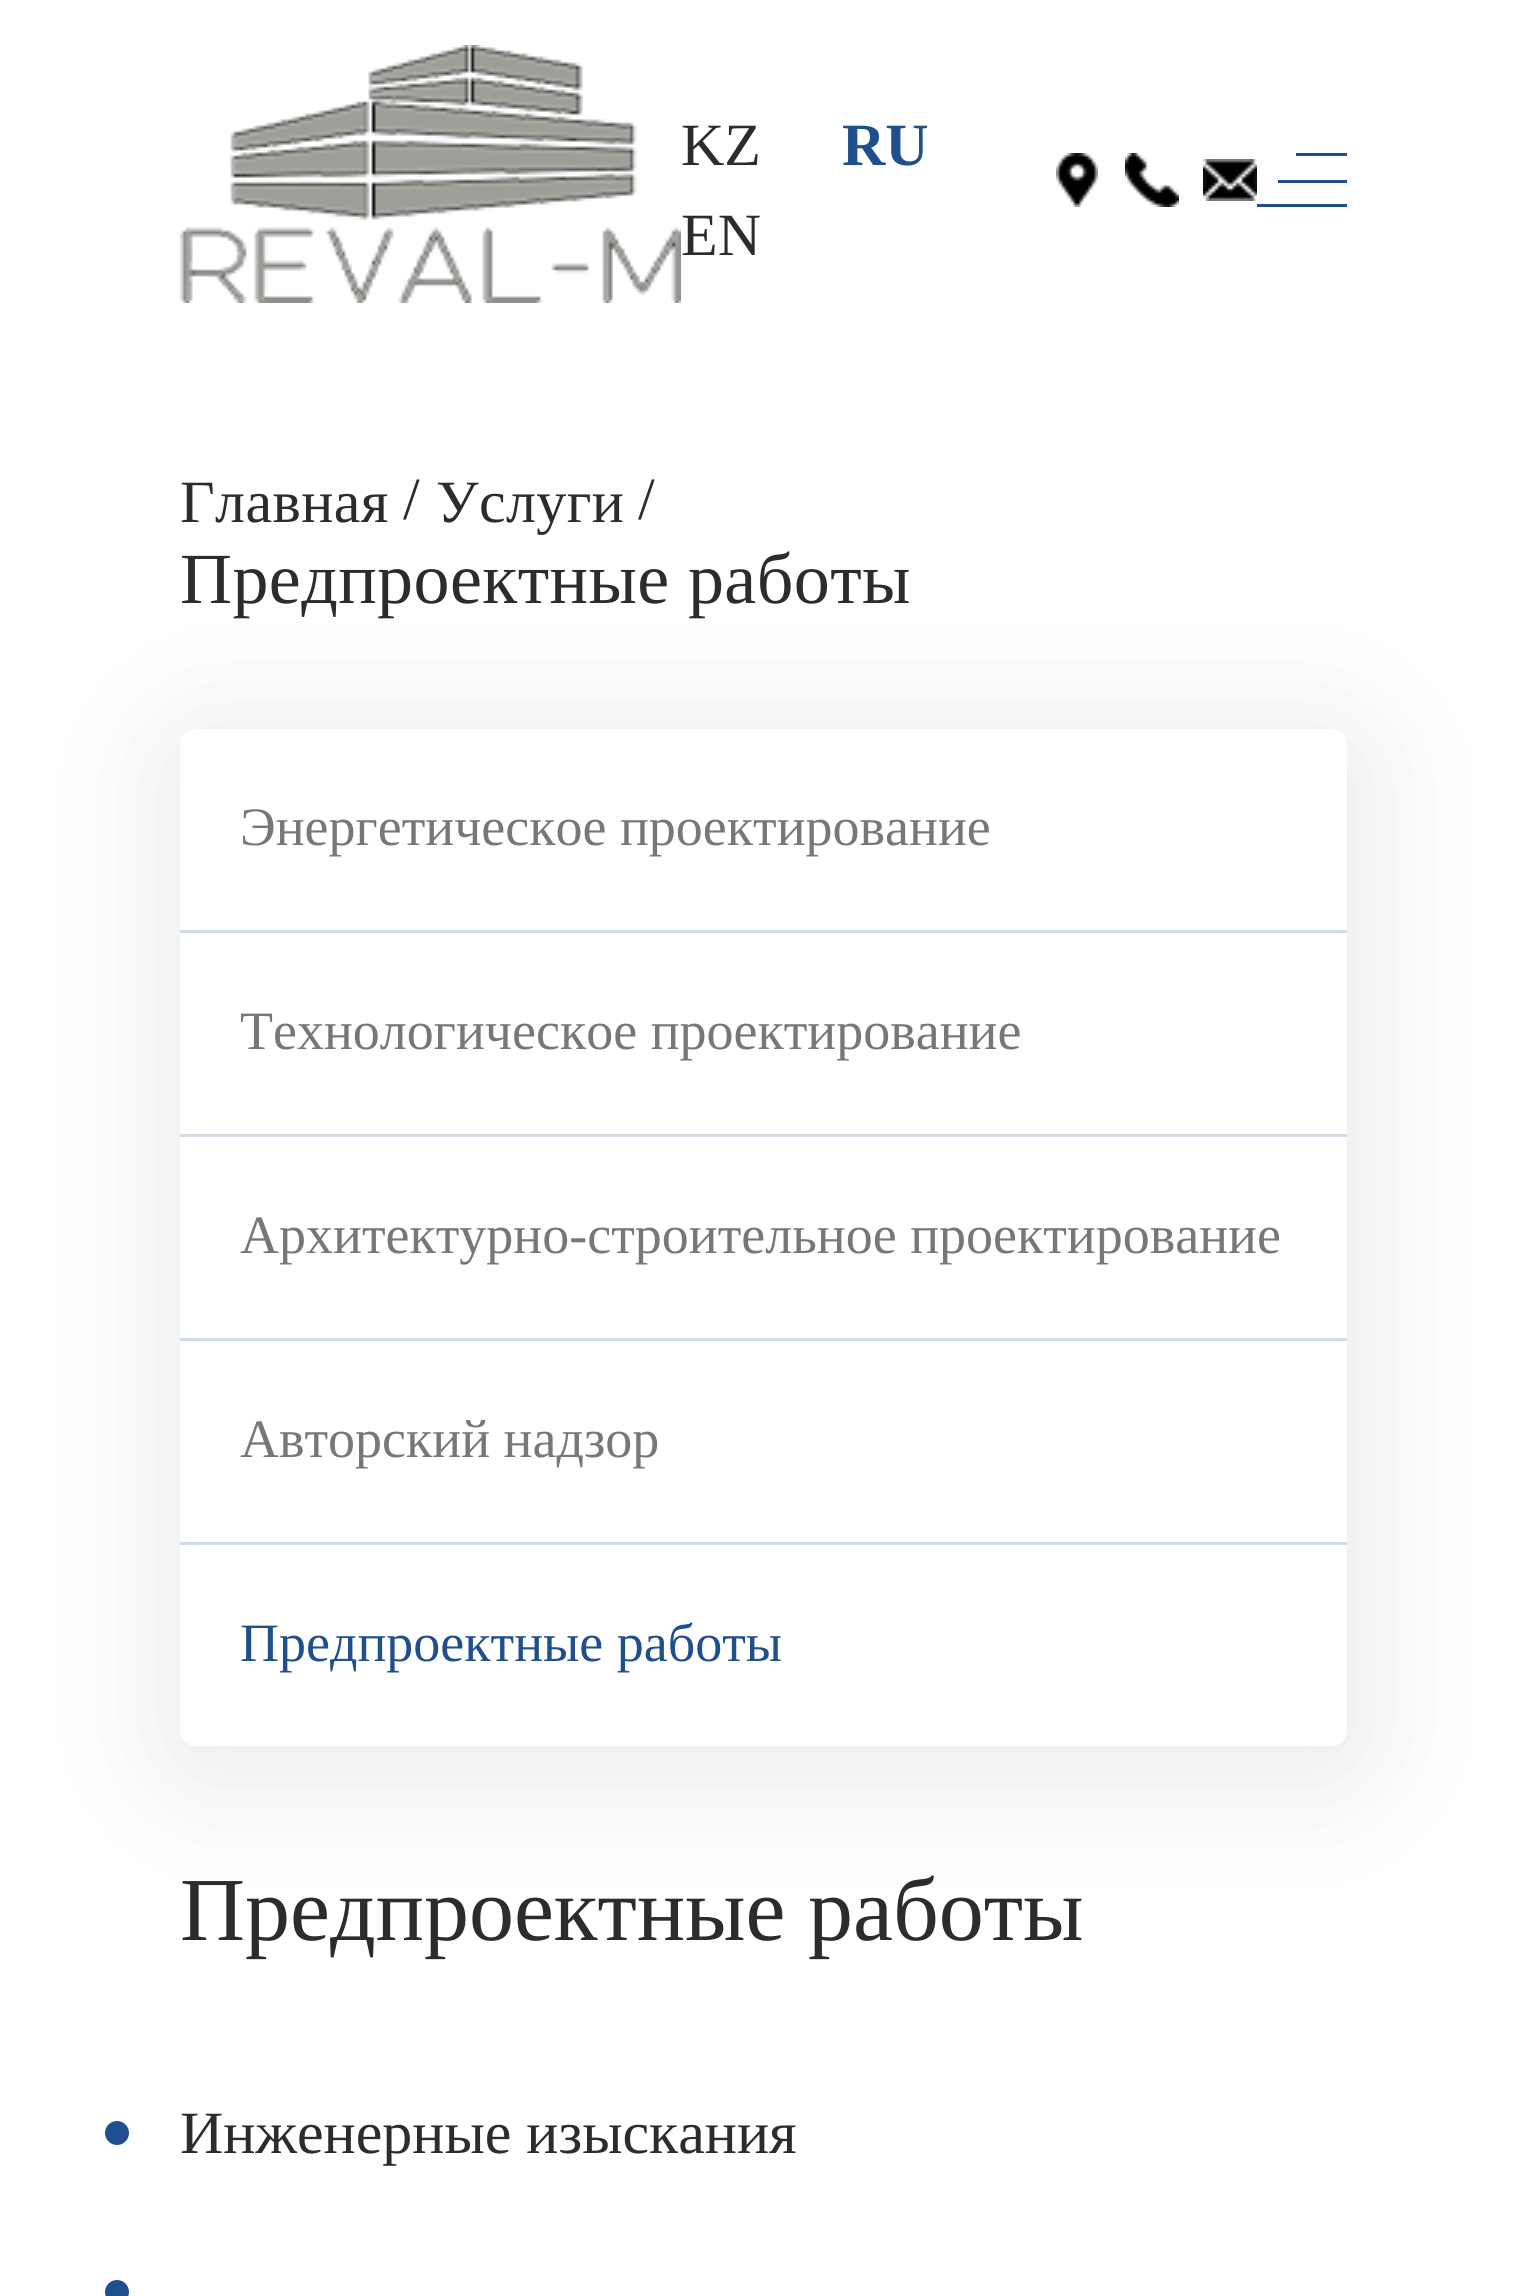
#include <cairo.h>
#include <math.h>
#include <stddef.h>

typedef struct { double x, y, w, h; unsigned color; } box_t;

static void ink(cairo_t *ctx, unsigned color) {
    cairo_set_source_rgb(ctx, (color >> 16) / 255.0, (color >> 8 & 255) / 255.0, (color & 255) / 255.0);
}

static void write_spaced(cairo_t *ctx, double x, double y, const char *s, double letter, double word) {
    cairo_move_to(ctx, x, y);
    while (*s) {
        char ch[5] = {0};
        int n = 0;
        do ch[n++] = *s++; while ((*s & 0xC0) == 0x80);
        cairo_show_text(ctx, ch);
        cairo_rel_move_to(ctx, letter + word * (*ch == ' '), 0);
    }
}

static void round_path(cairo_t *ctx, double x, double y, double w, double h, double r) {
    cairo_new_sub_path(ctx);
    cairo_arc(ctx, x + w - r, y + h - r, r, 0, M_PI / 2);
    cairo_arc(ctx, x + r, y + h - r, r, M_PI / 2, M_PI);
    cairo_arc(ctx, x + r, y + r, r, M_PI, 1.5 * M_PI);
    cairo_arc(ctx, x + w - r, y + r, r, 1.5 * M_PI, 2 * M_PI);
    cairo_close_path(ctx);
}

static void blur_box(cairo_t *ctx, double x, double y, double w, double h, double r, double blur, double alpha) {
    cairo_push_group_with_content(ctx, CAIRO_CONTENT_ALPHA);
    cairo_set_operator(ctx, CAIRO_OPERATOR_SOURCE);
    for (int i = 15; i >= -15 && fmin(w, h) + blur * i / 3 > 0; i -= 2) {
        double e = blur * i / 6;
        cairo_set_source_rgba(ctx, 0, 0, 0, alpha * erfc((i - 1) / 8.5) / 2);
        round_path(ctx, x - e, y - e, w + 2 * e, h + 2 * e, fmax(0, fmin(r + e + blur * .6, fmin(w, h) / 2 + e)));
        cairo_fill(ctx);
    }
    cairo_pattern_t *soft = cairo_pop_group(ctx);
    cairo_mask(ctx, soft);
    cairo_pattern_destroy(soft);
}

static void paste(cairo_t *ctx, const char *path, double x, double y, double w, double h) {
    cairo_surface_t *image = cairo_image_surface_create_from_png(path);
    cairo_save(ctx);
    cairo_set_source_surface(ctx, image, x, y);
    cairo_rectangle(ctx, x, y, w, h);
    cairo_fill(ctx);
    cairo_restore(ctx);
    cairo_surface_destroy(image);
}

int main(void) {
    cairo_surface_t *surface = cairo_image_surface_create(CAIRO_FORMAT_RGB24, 1526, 2296);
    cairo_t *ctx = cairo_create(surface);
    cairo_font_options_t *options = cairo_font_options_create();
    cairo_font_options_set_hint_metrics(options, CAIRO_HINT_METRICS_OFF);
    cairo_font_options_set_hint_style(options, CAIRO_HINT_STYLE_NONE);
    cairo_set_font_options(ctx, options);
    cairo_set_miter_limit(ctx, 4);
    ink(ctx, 0xFFFFFF);
    cairo_paint(ctx);
    paste(ctx, "media/1.png", 180, 45, 501, 258);
    cairo_select_font_face(ctx, "Liberation Serif", CAIRO_FONT_SLANT_NORMAL, CAIRO_FONT_WEIGHT_NORMAL);
    cairo_set_font_size(ctx, 60);
    ink(ctx, 0x2C2C2C);
    cairo_move_to(ctx, 681, 165);
    cairo_show_text(ctx, "KZ");
    cairo_select_font_face(ctx, "Liberation Serif", CAIRO_FONT_SLANT_NORMAL, CAIRO_FONT_WEIGHT_BOLD);
    ink(ctx, 0x204F8E);
    cairo_move_to(ctx, 842, 165);
    cairo_show_text(ctx, "RU");
    cairo_select_font_face(ctx, "Liberation Serif", CAIRO_FONT_SLANT_NORMAL, CAIRO_FONT_WEIGHT_NORMAL);
    ink(ctx, 0x2C2C2C);
    cairo_move_to(ctx, 681, 255);
    cairo_show_text(ctx, "EN");
    paste(ctx, "media/2.png", 1056, 153, 42, 54);
    paste(ctx, "media/3.png", 1125, 153, 54, 54);
    paste(ctx, "media/4.png", 1203, 159, 54, 42);
    {
        static const box_t items[] = {
            {1296, 153, 51, 3, 0x204F8E},
            {1278, 180, 69, 3, 0x204F8E},
            {1257, 204, 90, 3, 0x204F8E},
        };
        for (size_t i = 0; i < sizeof items / sizeof *items; i++) {
            ink(ctx, items[i].color);
            cairo_rectangle(ctx, items[i].x, items[i].y, items[i].w, items[i].h);
            cairo_fill(ctx);
        }
    }
    ink(ctx, 0x2C2C2C);
    write_spaced(ctx, 180, 522, "Главная", 0.4, 0);
    write_spaced(ctx, 403, 519, "/", 0.4, 0);
    ink(ctx, 0x000000);
    blur_box(ctx, 147, 711, 1239, 1089, 51, 60, 0.07);
    ink(ctx, 0x2C2C2C);
    write_spaced(ctx, 436, 522, "Услуги", 0.4, 0);
    write_spaced(ctx, 638, 519, "/", 0.4, 0);
    cairo_set_font_size(ctx, 72);
    write_spaced(ctx, 180, 603, "Предпроектные работы", 0.4, 0);
    ink(ctx, 0xFFFFFF);
    round_path(ctx, 180, 729, 1167, 1017, 15);
    cairo_fill(ctx);
    ink(ctx, 0xD2DCE8);
    cairo_rectangle(ctx, 180, 930, 1167, 3);
    cairo_fill(ctx);
    cairo_set_font_size(ctx, 54);
    ink(ctx, 0x777777);
    cairo_move_to(ctx, 240, 845);
    cairo_show_text(ctx, "Энергетическое проектирование");
    ink(ctx, 0xD2DCE8);
    cairo_rectangle(ctx, 180, 1134, 1167, 3);
    cairo_fill(ctx);
    ink(ctx, 0x777777);
    cairo_move_to(ctx, 240, 1049);
    cairo_show_text(ctx, "Технологическое проектирование");
    ink(ctx, 0xD2DCE8);
    cairo_rectangle(ctx, 180, 1338, 1167, 3);
    cairo_fill(ctx);
    ink(ctx, 0x777777);
    cairo_move_to(ctx, 240, 1253);
    cairo_show_text(ctx, "Архитектурно-строительное проектирование");
    ink(ctx, 0xD2DCE8);
    cairo_rectangle(ctx, 180, 1542, 1167, 3);
    cairo_fill(ctx);
    ink(ctx, 0x777777);
    cairo_move_to(ctx, 240, 1457);
    cairo_show_text(ctx, "Авторский надзор");
    ink(ctx, 0x204F8E);
    cairo_move_to(ctx, 240, 1661);
    cairo_show_text(ctx, "Предпроектные работы");
    cairo_set_font_size(ctx, 90);
    ink(ctx, 0x2C2C2C);
    cairo_move_to(ctx, 180, 1940);
    cairo_show_text(ctx, "Предпроектные работы");
    ink(ctx, 0x204F8E);
    cairo_new_path(ctx);
    cairo_arc(ctx, 117, 2133, 12, 0, 2 * M_PI);
    cairo_fill(ctx);
    cairo_set_font_size(ctx, 60);
    ink(ctx, 0x2C2C2C);
    cairo_move_to(ctx, 180, 2153);
    cairo_show_text(ctx, "Инженерные изыскания");
    ink(ctx, 0x204F8E);
    cairo_new_path(ctx);
    cairo_arc(ctx, 117, 2292, 12, 0, 2 * M_PI);
    cairo_fill(ctx);
    cairo_surface_write_to_png(surface, "image.png");
    cairo_font_options_destroy(options);
    cairo_destroy(ctx);
    cairo_surface_destroy(surface);
    return 0;
}
